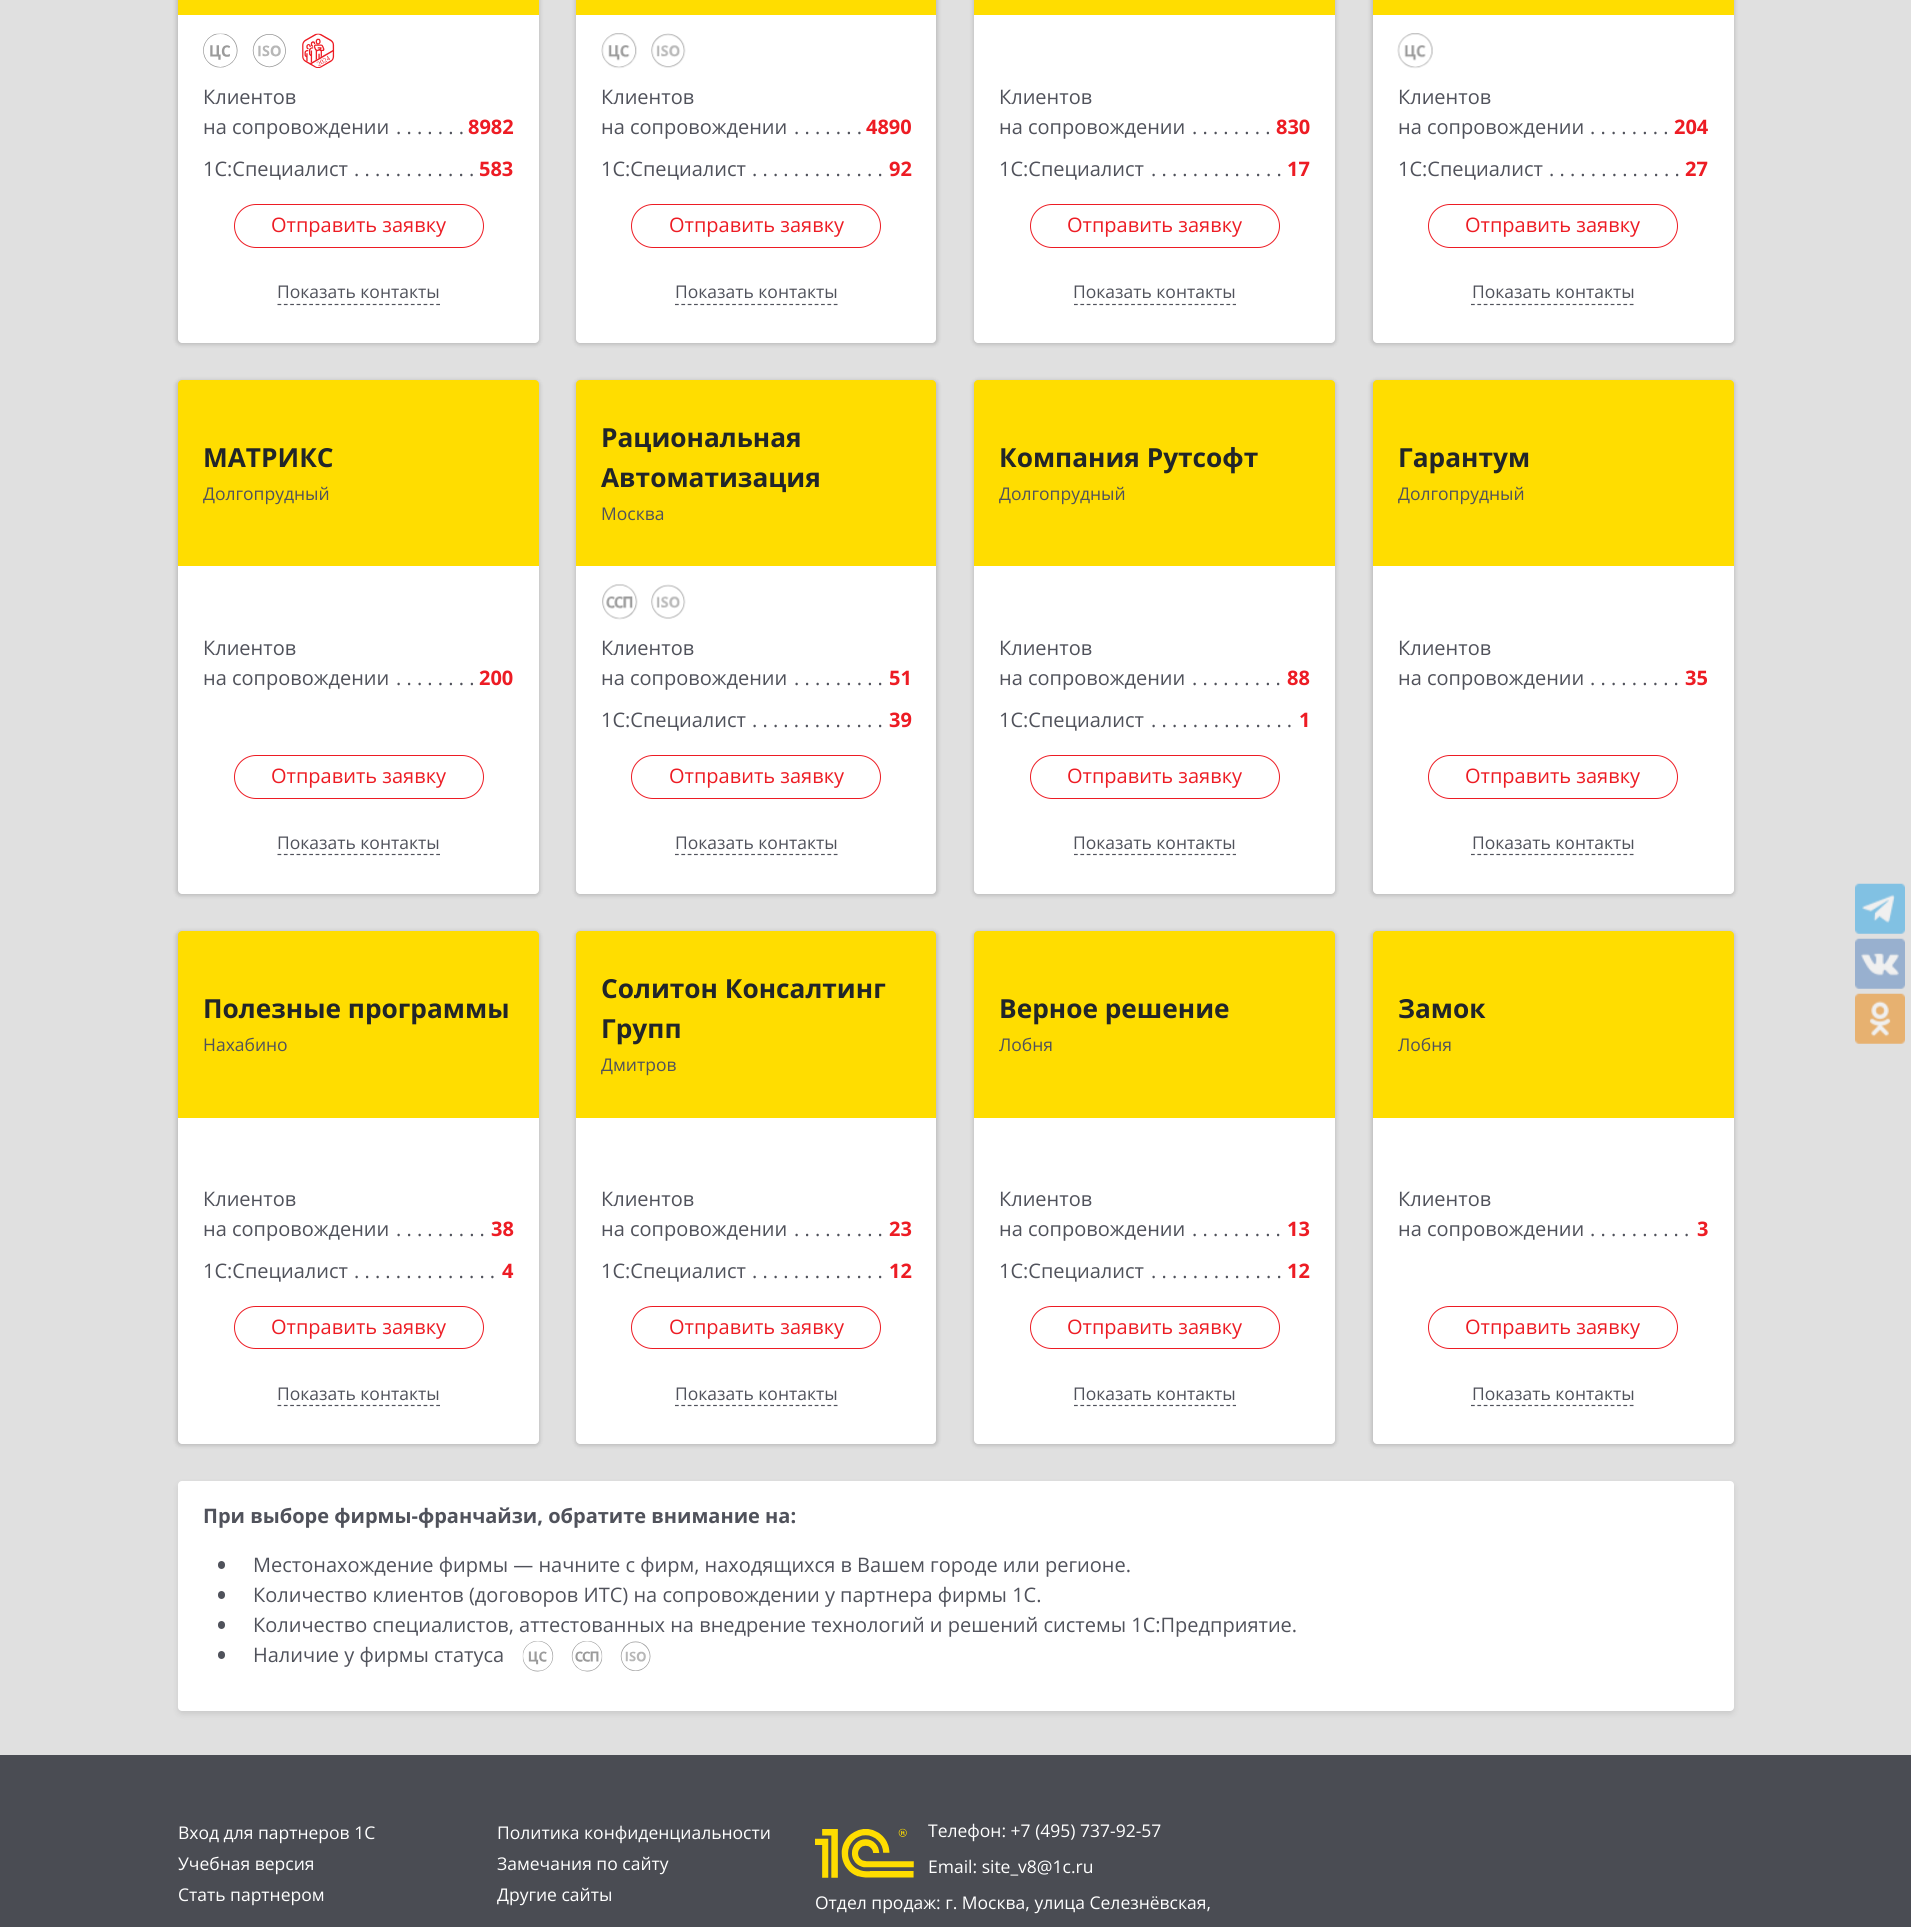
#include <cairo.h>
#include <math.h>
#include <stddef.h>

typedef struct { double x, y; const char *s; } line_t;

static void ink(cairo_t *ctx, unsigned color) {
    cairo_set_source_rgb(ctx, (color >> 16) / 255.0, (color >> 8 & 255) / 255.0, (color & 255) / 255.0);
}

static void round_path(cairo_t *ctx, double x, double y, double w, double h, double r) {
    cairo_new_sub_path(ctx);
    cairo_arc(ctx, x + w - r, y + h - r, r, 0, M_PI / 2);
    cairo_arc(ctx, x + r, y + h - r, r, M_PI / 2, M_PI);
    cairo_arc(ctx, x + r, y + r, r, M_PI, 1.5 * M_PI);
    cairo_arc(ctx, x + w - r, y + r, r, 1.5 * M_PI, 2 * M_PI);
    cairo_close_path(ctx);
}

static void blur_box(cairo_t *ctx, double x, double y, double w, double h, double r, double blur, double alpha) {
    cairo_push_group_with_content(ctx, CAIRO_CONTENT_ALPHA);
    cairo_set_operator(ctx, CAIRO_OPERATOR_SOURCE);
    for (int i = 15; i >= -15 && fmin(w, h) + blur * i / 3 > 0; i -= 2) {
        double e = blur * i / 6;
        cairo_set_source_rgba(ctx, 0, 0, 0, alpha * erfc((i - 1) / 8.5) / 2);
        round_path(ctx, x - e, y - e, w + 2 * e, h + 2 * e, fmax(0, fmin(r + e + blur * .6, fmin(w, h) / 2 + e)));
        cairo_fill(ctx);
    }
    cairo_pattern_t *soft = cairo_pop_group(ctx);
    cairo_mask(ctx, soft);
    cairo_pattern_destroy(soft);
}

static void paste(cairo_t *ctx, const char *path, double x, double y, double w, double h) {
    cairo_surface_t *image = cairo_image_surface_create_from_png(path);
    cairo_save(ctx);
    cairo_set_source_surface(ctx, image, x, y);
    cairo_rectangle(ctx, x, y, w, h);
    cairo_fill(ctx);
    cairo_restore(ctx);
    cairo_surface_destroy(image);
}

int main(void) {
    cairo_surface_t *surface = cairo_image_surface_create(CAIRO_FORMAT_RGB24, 1911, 1927);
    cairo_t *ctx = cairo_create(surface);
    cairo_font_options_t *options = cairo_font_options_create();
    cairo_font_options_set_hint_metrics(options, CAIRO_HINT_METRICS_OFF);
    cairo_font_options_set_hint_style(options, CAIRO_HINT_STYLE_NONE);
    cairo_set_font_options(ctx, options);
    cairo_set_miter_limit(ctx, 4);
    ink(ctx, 0xE0E0E0);
    cairo_paint(ctx);
    ink(ctx, 0x000000);
    blur_box(ctx, 176, -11, 364, 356, 5, 2, 0.15);
    ink(ctx, 0xFFDD00);
    cairo_rectangle(ctx, 178, 0, 361, 15);
    cairo_fill(ctx);
    ink(ctx, 0xFFFFFF);
    cairo_new_path(ctx);
    cairo_move_to(ctx, 178, 15);
    cairo_line_to(ctx, 539, 15);
    cairo_line_to(ctx, 539, 339);
    cairo_curve_to(ctx, 539, 341, 537, 343, 535, 343);
    cairo_line_to(ctx, 182, 343);
    cairo_curve_to(ctx, 180, 343, 178, 341, 178, 339);
    cairo_close_path(ctx);
    cairo_fill(ctx);
    paste(ctx, "media/1.png", 203, 33, 35, 35);
    paste(ctx, "media/2.png", 252, 34, 34, 34);
    paste(ctx, "media/3.png", 302, 33, 33, 35);
    cairo_select_font_face(ctx, "Open Sans", CAIRO_FONT_SLANT_NORMAL, CAIRO_FONT_WEIGHT_NORMAL);
    cairo_set_font_size(ctx, 20);
    ink(ctx, 0x50525B);
    {
        static const line_t items[] = {
            {203, 104, "Клиентов"},
            {203, 134, "на сопровождении"},
            {396, 134, ". . . . . . ."},
        };
        for (size_t i = 0; i < sizeof items / sizeof *items; i++) {
            cairo_move_to(ctx, items[i].x, items[i].y);
            cairo_show_text(ctx, items[i].s);
        }
    }
    cairo_select_font_face(ctx, "Open Sans", CAIRO_FONT_SLANT_NORMAL, CAIRO_FONT_WEIGHT_BOLD);
    ink(ctx, 0xED1C24);
    cairo_move_to(ctx, 468, 134);
    cairo_show_text(ctx, "8982");
    cairo_select_font_face(ctx, "Open Sans", CAIRO_FONT_SLANT_NORMAL, CAIRO_FONT_WEIGHT_NORMAL);
    ink(ctx, 0x50525B);
    cairo_move_to(ctx, 203, 176);
    cairo_show_text(ctx, "1С:Специалист");
    cairo_move_to(ctx, 354, 176);
    cairo_show_text(ctx, ". . . . . . . . . . . .");
    cairo_select_font_face(ctx, "Open Sans", CAIRO_FONT_SLANT_NORMAL, CAIRO_FONT_WEIGHT_BOLD);
    ink(ctx, 0xED1C24);
    cairo_move_to(ctx, 479, 176);
    cairo_show_text(ctx, "583");
    round_path(ctx, 234.5, 204.5, 249, 43, 21.5);
    cairo_set_line_width(ctx, 1);
    cairo_stroke(ctx);
    cairo_select_font_face(ctx, "Open Sans", CAIRO_FONT_SLANT_NORMAL, CAIRO_FONT_WEIGHT_NORMAL);
    cairo_move_to(ctx, 271, 232);
    cairo_show_text(ctx, "Отправить заявку");
    cairo_new_path(ctx);
    cairo_move_to(ctx, 277.5, 304.5);
    cairo_line_to(ctx, 440, 304.5);
    ink(ctx, 0x50525B);
    cairo_set_line_width(ctx, 1.2);
    cairo_set_dash(ctx, (double[]){3.75, 2.6}, 2, 0);
    cairo_stroke(ctx);
    cairo_set_font_size(ctx, 17.5);
    cairo_move_to(ctx, 277, 298);
    cairo_show_text(ctx, "Показать контакты");
    ink(ctx, 0x000000);
    blur_box(ctx, 575, -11, 363, 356, 5, 2, 0.15);
    ink(ctx, 0xFFDD00);
    cairo_rectangle(ctx, 576, 0, 360, 15);
    cairo_fill(ctx);
    ink(ctx, 0xFFFFFF);
    cairo_new_path(ctx);
    cairo_move_to(ctx, 576, 15);
    cairo_line_to(ctx, 936, 15);
    cairo_line_to(ctx, 936, 339);
    cairo_curve_to(ctx, 936, 341, 934, 343, 932, 343);
    cairo_line_to(ctx, 580, 343);
    cairo_curve_to(ctx, 578, 343, 576, 341, 576, 339);
    cairo_close_path(ctx);
    cairo_fill(ctx);
    paste(ctx, "media/4.png", 601, 33, 36, 36);
    paste(ctx, "media/5.png", 651, 33, 35, 35);
    cairo_set_font_size(ctx, 20);
    ink(ctx, 0x50525B);
    {
        static const line_t items[] = {
            {601, 104, "Клиентов"},
            {601, 134, "на сопровождении"},
            {794, 134, ". . . . . . ."},
        };
        for (size_t i = 0; i < sizeof items / sizeof *items; i++) {
            cairo_move_to(ctx, items[i].x, items[i].y);
            cairo_show_text(ctx, items[i].s);
        }
    }
    cairo_select_font_face(ctx, "Open Sans", CAIRO_FONT_SLANT_NORMAL, CAIRO_FONT_WEIGHT_BOLD);
    ink(ctx, 0xED1C24);
    cairo_move_to(ctx, 866, 134);
    cairo_show_text(ctx, "4890");
    cairo_select_font_face(ctx, "Open Sans", CAIRO_FONT_SLANT_NORMAL, CAIRO_FONT_WEIGHT_NORMAL);
    ink(ctx, 0x50525B);
    cairo_move_to(ctx, 601, 176);
    cairo_show_text(ctx, "1С:Специалист");
    cairo_move_to(ctx, 752, 176);
    cairo_show_text(ctx, ". . . . . . . . . . . . .");
    cairo_select_font_face(ctx, "Open Sans", CAIRO_FONT_SLANT_NORMAL, CAIRO_FONT_WEIGHT_BOLD);
    ink(ctx, 0xED1C24);
    cairo_move_to(ctx, 889, 176);
    cairo_show_text(ctx, "92");
    round_path(ctx, 631.5, 204.5, 249, 43, 21.5);
    cairo_set_line_width(ctx, 1);
    cairo_set_dash(ctx, NULL, 0, 0);
    cairo_stroke(ctx);
    cairo_select_font_face(ctx, "Open Sans", CAIRO_FONT_SLANT_NORMAL, CAIRO_FONT_WEIGHT_NORMAL);
    cairo_move_to(ctx, 669, 232);
    cairo_show_text(ctx, "Отправить заявку");
    cairo_new_path(ctx);
    cairo_move_to(ctx, 675, 304.5);
    cairo_line_to(ctx, 837.5, 304.5);
    ink(ctx, 0x50525B);
    cairo_set_line_width(ctx, 1.2);
    cairo_set_dash(ctx, (double[]){3.75, 2.6}, 2, 0);
    cairo_stroke(ctx);
    cairo_set_font_size(ctx, 17.5);
    cairo_move_to(ctx, 675, 298);
    cairo_show_text(ctx, "Показать контакты");
    ink(ctx, 0x000000);
    blur_box(ctx, 973, -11, 363, 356, 5, 2, 0.15);
    ink(ctx, 0xFFDD00);
    cairo_rectangle(ctx, 974, 0, 361, 15);
    cairo_fill(ctx);
    ink(ctx, 0xFFFFFF);
    cairo_new_path(ctx);
    cairo_move_to(ctx, 974, 15);
    cairo_line_to(ctx, 1335, 15);
    cairo_line_to(ctx, 1335, 339);
    cairo_curve_to(ctx, 1335, 341, 1333, 343, 1331, 343);
    cairo_line_to(ctx, 978, 343);
    cairo_curve_to(ctx, 976, 343, 974, 341, 974, 339);
    cairo_close_path(ctx);
    cairo_fill(ctx);
    cairo_set_font_size(ctx, 20);
    ink(ctx, 0x50525B);
    {
        static const line_t items[] = {
            {999, 104, "Клиентов"},
            {999, 134, "на сопровождении"},
            {1192, 134, ". . . . . . . ."},
        };
        for (size_t i = 0; i < sizeof items / sizeof *items; i++) {
            cairo_move_to(ctx, items[i].x, items[i].y);
            cairo_show_text(ctx, items[i].s);
        }
    }
    cairo_select_font_face(ctx, "Open Sans", CAIRO_FONT_SLANT_NORMAL, CAIRO_FONT_WEIGHT_BOLD);
    ink(ctx, 0xED1C24);
    cairo_move_to(ctx, 1276, 134);
    cairo_show_text(ctx, "830");
    cairo_select_font_face(ctx, "Open Sans", CAIRO_FONT_SLANT_NORMAL, CAIRO_FONT_WEIGHT_NORMAL);
    ink(ctx, 0x50525B);
    cairo_move_to(ctx, 999, 176);
    cairo_show_text(ctx, "1С:Специалист");
    cairo_move_to(ctx, 1151, 176);
    cairo_show_text(ctx, ". . . . . . . . . . . . .");
    cairo_select_font_face(ctx, "Open Sans", CAIRO_FONT_SLANT_NORMAL, CAIRO_FONT_WEIGHT_BOLD);
    ink(ctx, 0xED1C24);
    cairo_move_to(ctx, 1287, 176);
    cairo_show_text(ctx, "17");
    round_path(ctx, 1030.5, 204.5, 249, 43, 21.5);
    cairo_set_line_width(ctx, 1);
    cairo_set_dash(ctx, NULL, 0, 0);
    cairo_stroke(ctx);
    cairo_select_font_face(ctx, "Open Sans", CAIRO_FONT_SLANT_NORMAL, CAIRO_FONT_WEIGHT_NORMAL);
    cairo_move_to(ctx, 1067, 232);
    cairo_show_text(ctx, "Отправить заявку");
    cairo_new_path(ctx);
    cairo_move_to(ctx, 1074, 304.5);
    cairo_line_to(ctx, 1236, 304.5);
    ink(ctx, 0x50525B);
    cairo_set_line_width(ctx, 1.2);
    cairo_set_dash(ctx, (double[]){3.75, 2.6}, 2, 0);
    cairo_stroke(ctx);
    cairo_set_font_size(ctx, 17.5);
    cairo_move_to(ctx, 1073, 298);
    cairo_show_text(ctx, "Показать контакты");
    ink(ctx, 0x000000);
    blur_box(ctx, 1371, -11, 364, 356, 5, 2, 0.15);
    ink(ctx, 0xFFDD00);
    cairo_rectangle(ctx, 1373, 0, 361, 15);
    cairo_fill(ctx);
    ink(ctx, 0xFFFFFF);
    cairo_new_path(ctx);
    cairo_move_to(ctx, 1373, 15);
    cairo_line_to(ctx, 1734, 15);
    cairo_line_to(ctx, 1734, 339);
    cairo_curve_to(ctx, 1734, 341, 1732, 343, 1730, 343);
    cairo_line_to(ctx, 1377, 343);
    cairo_curve_to(ctx, 1375, 343, 1373, 341, 1373, 339);
    cairo_close_path(ctx);
    cairo_fill(ctx);
    paste(ctx, "media/6.png", 1397, 33, 36, 36);
    cairo_set_font_size(ctx, 20);
    ink(ctx, 0x50525B);
    {
        static const line_t items[] = {
            {1398, 104, "Клиентов"},
            {1398, 134, "на сопровождении"},
            {1590, 134, ". . . . . . . ."},
        };
        for (size_t i = 0; i < sizeof items / sizeof *items; i++) {
            cairo_move_to(ctx, items[i].x, items[i].y);
            cairo_show_text(ctx, items[i].s);
        }
    }
    cairo_select_font_face(ctx, "Open Sans", CAIRO_FONT_SLANT_NORMAL, CAIRO_FONT_WEIGHT_BOLD);
    ink(ctx, 0xED1C24);
    cairo_move_to(ctx, 1674, 134);
    cairo_show_text(ctx, "204");
    cairo_select_font_face(ctx, "Open Sans", CAIRO_FONT_SLANT_NORMAL, CAIRO_FONT_WEIGHT_NORMAL);
    ink(ctx, 0x50525B);
    cairo_move_to(ctx, 1398, 176);
    cairo_show_text(ctx, "1С:Специалист");
    cairo_move_to(ctx, 1549, 176);
    cairo_show_text(ctx, ". . . . . . . . . . . . .");
    cairo_select_font_face(ctx, "Open Sans", CAIRO_FONT_SLANT_NORMAL, CAIRO_FONT_WEIGHT_BOLD);
    ink(ctx, 0xED1C24);
    cairo_move_to(ctx, 1685, 176);
    cairo_show_text(ctx, "27");
    round_path(ctx, 1428.5, 204.5, 249, 43, 21.5);
    cairo_set_line_width(ctx, 1);
    cairo_set_dash(ctx, NULL, 0, 0);
    cairo_stroke(ctx);
    cairo_select_font_face(ctx, "Open Sans", CAIRO_FONT_SLANT_NORMAL, CAIRO_FONT_WEIGHT_NORMAL);
    cairo_move_to(ctx, 1465, 232);
    cairo_show_text(ctx, "Отправить заявку");
    cairo_new_path(ctx);
    cairo_move_to(ctx, 1471, 304.5);
    cairo_line_to(ctx, 1634, 304.5);
    ink(ctx, 0x50525B);
    cairo_set_line_width(ctx, 1.2);
    cairo_set_dash(ctx, (double[]){3.75, 2.6}, 2, 0);
    cairo_stroke(ctx);
    cairo_set_font_size(ctx, 17.5);
    cairo_move_to(ctx, 1472, 298);
    cairo_show_text(ctx, "Показать контакты");
    ink(ctx, 0x000000);
    blur_box(ctx, 176, 380, 364, 516, 5, 2, 0.15);
    ink(ctx, 0xFFDD00);
    cairo_new_path(ctx);
    cairo_move_to(ctx, 182, 380);
    cairo_line_to(ctx, 535, 380);
    cairo_curve_to(ctx, 537, 380, 539, 382, 539, 384);
    cairo_line_to(ctx, 539, 566);
    cairo_line_to(ctx, 178, 566);
    cairo_line_to(ctx, 178, 384);
    cairo_curve_to(ctx, 178, 382, 180, 380, 182, 380);
    cairo_close_path(ctx);
    cairo_fill(ctx);
    cairo_select_font_face(ctx, "Open Sans", CAIRO_FONT_SLANT_NORMAL, CAIRO_FONT_WEIGHT_BOLD);
    cairo_set_font_size(ctx, 26.25);
    ink(ctx, 0x212529);
    cairo_move_to(ctx, 203, 467);
    cairo_show_text(ctx, "МАТРИКС");
    cairo_select_font_face(ctx, "Open Sans", CAIRO_FONT_SLANT_NORMAL, CAIRO_FONT_WEIGHT_NORMAL);
    cairo_set_font_size(ctx, 17.5);
    ink(ctx, 0x50525B);
    cairo_move_to(ctx, 203, 500);
    cairo_show_text(ctx, "Долгопрудный");
    ink(ctx, 0xFFFFFF);
    cairo_new_path(ctx);
    cairo_move_to(ctx, 178, 566);
    cairo_line_to(ctx, 539, 566);
    cairo_line_to(ctx, 539, 890);
    cairo_curve_to(ctx, 539, 892, 537, 894, 535, 894);
    cairo_line_to(ctx, 182, 894);
    cairo_curve_to(ctx, 180, 894, 178, 892, 178, 890);
    cairo_close_path(ctx);
    cairo_fill(ctx);
    cairo_set_font_size(ctx, 20);
    ink(ctx, 0x50525B);
    {
        static const line_t items[] = {
            {203, 655, "Клиентов"},
            {203, 685, "на сопровождении"},
            {396, 685, ". . . . . . . ."},
        };
        for (size_t i = 0; i < sizeof items / sizeof *items; i++) {
            cairo_move_to(ctx, items[i].x, items[i].y);
            cairo_show_text(ctx, items[i].s);
        }
    }
    cairo_select_font_face(ctx, "Open Sans", CAIRO_FONT_SLANT_NORMAL, CAIRO_FONT_WEIGHT_BOLD);
    ink(ctx, 0xED1C24);
    cairo_move_to(ctx, 479, 685);
    cairo_show_text(ctx, "200");
    round_path(ctx, 234.5, 755.5, 249, 43, 21.5);
    cairo_set_line_width(ctx, 1);
    cairo_set_dash(ctx, NULL, 0, 0);
    cairo_stroke(ctx);
    cairo_select_font_face(ctx, "Open Sans", CAIRO_FONT_SLANT_NORMAL, CAIRO_FONT_WEIGHT_NORMAL);
    cairo_move_to(ctx, 271, 783);
    cairo_show_text(ctx, "Отправить заявку");
    cairo_new_path(ctx);
    cairo_move_to(ctx, 277.5, 854.5);
    cairo_line_to(ctx, 440, 854.5);
    ink(ctx, 0x50525B);
    cairo_set_line_width(ctx, 1.2);
    cairo_set_dash(ctx, (double[]){3.75, 2.6}, 2, 0);
    cairo_stroke(ctx);
    cairo_set_font_size(ctx, 17.5);
    cairo_move_to(ctx, 277, 849);
    cairo_show_text(ctx, "Показать контакты");
    ink(ctx, 0x000000);
    blur_box(ctx, 575, 380, 363, 516, 5, 2, 0.15);
    ink(ctx, 0xFFDD00);
    cairo_new_path(ctx);
    cairo_move_to(ctx, 580, 380);
    cairo_line_to(ctx, 932, 380);
    cairo_curve_to(ctx, 934, 380, 936, 382, 936, 384);
    cairo_line_to(ctx, 936, 566);
    cairo_line_to(ctx, 576, 566);
    cairo_line_to(ctx, 576, 384);
    cairo_curve_to(ctx, 576, 382, 578, 380, 580, 380);
    cairo_close_path(ctx);
    cairo_fill(ctx);
    cairo_select_font_face(ctx, "Open Sans", CAIRO_FONT_SLANT_NORMAL, CAIRO_FONT_WEIGHT_BOLD);
    cairo_set_font_size(ctx, 26.25);
    ink(ctx, 0x212529);
    cairo_move_to(ctx, 601, 447);
    cairo_show_text(ctx, "Рациональная");
    cairo_move_to(ctx, 601, 487);
    cairo_show_text(ctx, "Автоматизация");
    cairo_select_font_face(ctx, "Open Sans", CAIRO_FONT_SLANT_NORMAL, CAIRO_FONT_WEIGHT_NORMAL);
    cairo_set_font_size(ctx, 17.5);
    ink(ctx, 0x50525B);
    cairo_move_to(ctx, 601, 520);
    cairo_show_text(ctx, "Москва");
    ink(ctx, 0xFFFFFF);
    cairo_new_path(ctx);
    cairo_move_to(ctx, 576, 566);
    cairo_line_to(ctx, 936, 566);
    cairo_line_to(ctx, 936, 890);
    cairo_curve_to(ctx, 936, 892, 934, 894, 932, 894);
    cairo_line_to(ctx, 580, 894);
    cairo_curve_to(ctx, 578, 894, 576, 892, 576, 890);
    cairo_close_path(ctx);
    cairo_fill(ctx);
    paste(ctx, "media/7.png", 602, 584, 36, 36);
    paste(ctx, "media/8.png", 651, 584, 35, 35);
    cairo_set_font_size(ctx, 20);
    ink(ctx, 0x50525B);
    {
        static const line_t items[] = {
            {601, 655, "Клиентов"},
            {601, 685, "на сопровождении"},
            {794, 685, ". . . . . . . . ."},
        };
        for (size_t i = 0; i < sizeof items / sizeof *items; i++) {
            cairo_move_to(ctx, items[i].x, items[i].y);
            cairo_show_text(ctx, items[i].s);
        }
    }
    cairo_select_font_face(ctx, "Open Sans", CAIRO_FONT_SLANT_NORMAL, CAIRO_FONT_WEIGHT_BOLD);
    ink(ctx, 0xED1C24);
    cairo_move_to(ctx, 889, 685);
    cairo_show_text(ctx, "51");
    cairo_select_font_face(ctx, "Open Sans", CAIRO_FONT_SLANT_NORMAL, CAIRO_FONT_WEIGHT_NORMAL);
    ink(ctx, 0x50525B);
    cairo_move_to(ctx, 601, 727);
    cairo_show_text(ctx, "1С:Специалист");
    cairo_move_to(ctx, 752, 727);
    cairo_show_text(ctx, ". . . . . . . . . . . . .");
    cairo_select_font_face(ctx, "Open Sans", CAIRO_FONT_SLANT_NORMAL, CAIRO_FONT_WEIGHT_BOLD);
    ink(ctx, 0xED1C24);
    cairo_move_to(ctx, 889, 727);
    cairo_show_text(ctx, "39");
    round_path(ctx, 631.5, 755.5, 249, 43, 21.5);
    cairo_set_line_width(ctx, 1);
    cairo_set_dash(ctx, NULL, 0, 0);
    cairo_stroke(ctx);
    cairo_select_font_face(ctx, "Open Sans", CAIRO_FONT_SLANT_NORMAL, CAIRO_FONT_WEIGHT_NORMAL);
    cairo_move_to(ctx, 669, 783);
    cairo_show_text(ctx, "Отправить заявку");
    cairo_new_path(ctx);
    cairo_move_to(ctx, 675, 854.5);
    cairo_line_to(ctx, 837.5, 854.5);
    ink(ctx, 0x50525B);
    cairo_set_line_width(ctx, 1.2);
    cairo_set_dash(ctx, (double[]){3.75, 2.6}, 2, 0);
    cairo_stroke(ctx);
    cairo_set_font_size(ctx, 17.5);
    cairo_move_to(ctx, 675, 849);
    cairo_show_text(ctx, "Показать контакты");
    ink(ctx, 0x000000);
    blur_box(ctx, 973, 380, 363, 516, 5, 2, 0.15);
    ink(ctx, 0xFFDD00);
    cairo_new_path(ctx);
    cairo_move_to(ctx, 978, 380);
    cairo_line_to(ctx, 1331, 380);
    cairo_curve_to(ctx, 1333, 380, 1335, 382, 1335, 384);
    cairo_line_to(ctx, 1335, 566);
    cairo_line_to(ctx, 974, 566);
    cairo_line_to(ctx, 974, 384);
    cairo_curve_to(ctx, 974, 382, 976, 380, 978, 380);
    cairo_close_path(ctx);
    cairo_fill(ctx);
    cairo_select_font_face(ctx, "Open Sans", CAIRO_FONT_SLANT_NORMAL, CAIRO_FONT_WEIGHT_BOLD);
    cairo_set_font_size(ctx, 26.25);
    ink(ctx, 0x212529);
    cairo_move_to(ctx, 999, 467);
    cairo_show_text(ctx, "Компания Рутсофт");
    cairo_select_font_face(ctx, "Open Sans", CAIRO_FONT_SLANT_NORMAL, CAIRO_FONT_WEIGHT_NORMAL);
    cairo_set_font_size(ctx, 17.5);
    ink(ctx, 0x50525B);
    cairo_move_to(ctx, 999, 500);
    cairo_show_text(ctx, "Долгопрудный");
    ink(ctx, 0xFFFFFF);
    cairo_new_path(ctx);
    cairo_move_to(ctx, 974, 566);
    cairo_line_to(ctx, 1335, 566);
    cairo_line_to(ctx, 1335, 890);
    cairo_curve_to(ctx, 1335, 892, 1333, 894, 1331, 894);
    cairo_line_to(ctx, 978, 894);
    cairo_curve_to(ctx, 976, 894, 974, 892, 974, 890);
    cairo_close_path(ctx);
    cairo_fill(ctx);
    cairo_set_font_size(ctx, 20);
    ink(ctx, 0x50525B);
    {
        static const line_t items[] = {
            {999, 655, "Клиентов"},
            {999, 685, "на сопровождении"},
            {1192, 685, ". . . . . . . . ."},
        };
        for (size_t i = 0; i < sizeof items / sizeof *items; i++) {
            cairo_move_to(ctx, items[i].x, items[i].y);
            cairo_show_text(ctx, items[i].s);
        }
    }
    cairo_select_font_face(ctx, "Open Sans", CAIRO_FONT_SLANT_NORMAL, CAIRO_FONT_WEIGHT_BOLD);
    ink(ctx, 0xED1C24);
    cairo_move_to(ctx, 1287, 685);
    cairo_show_text(ctx, "88");
    cairo_select_font_face(ctx, "Open Sans", CAIRO_FONT_SLANT_NORMAL, CAIRO_FONT_WEIGHT_NORMAL);
    ink(ctx, 0x50525B);
    cairo_move_to(ctx, 999, 727);
    cairo_show_text(ctx, "1С:Специалист");
    cairo_move_to(ctx, 1151, 727);
    cairo_show_text(ctx, ". . . . . . . . . . . . . .");
    cairo_select_font_face(ctx, "Open Sans", CAIRO_FONT_SLANT_NORMAL, CAIRO_FONT_WEIGHT_BOLD);
    ink(ctx, 0xED1C24);
    cairo_move_to(ctx, 1299, 727);
    cairo_show_text(ctx, "1");
    round_path(ctx, 1030.5, 755.5, 249, 43, 21.5);
    cairo_set_line_width(ctx, 1);
    cairo_set_dash(ctx, NULL, 0, 0);
    cairo_stroke(ctx);
    cairo_select_font_face(ctx, "Open Sans", CAIRO_FONT_SLANT_NORMAL, CAIRO_FONT_WEIGHT_NORMAL);
    cairo_move_to(ctx, 1067, 783);
    cairo_show_text(ctx, "Отправить заявку");
    cairo_new_path(ctx);
    cairo_move_to(ctx, 1074, 854.5);
    cairo_line_to(ctx, 1236, 854.5);
    ink(ctx, 0x50525B);
    cairo_set_line_width(ctx, 1.2);
    cairo_set_dash(ctx, (double[]){3.75, 2.6}, 2, 0);
    cairo_stroke(ctx);
    cairo_set_font_size(ctx, 17.5);
    cairo_move_to(ctx, 1073, 849);
    cairo_show_text(ctx, "Показать контакты");
    ink(ctx, 0x000000);
    blur_box(ctx, 1371, 380, 364, 516, 5, 2, 0.15);
    ink(ctx, 0xFFDD00);
    cairo_new_path(ctx);
    cairo_move_to(ctx, 1377, 380);
    cairo_line_to(ctx, 1730, 380);
    cairo_curve_to(ctx, 1732, 380, 1734, 382, 1734, 384);
    cairo_line_to(ctx, 1734, 566);
    cairo_line_to(ctx, 1373, 566);
    cairo_line_to(ctx, 1373, 384);
    cairo_curve_to(ctx, 1373, 382, 1375, 380, 1377, 380);
    cairo_close_path(ctx);
    cairo_fill(ctx);
    cairo_select_font_face(ctx, "Open Sans", CAIRO_FONT_SLANT_NORMAL, CAIRO_FONT_WEIGHT_BOLD);
    cairo_set_font_size(ctx, 26.25);
    ink(ctx, 0x212529);
    cairo_move_to(ctx, 1398, 467);
    cairo_show_text(ctx, "Гарантум");
    cairo_select_font_face(ctx, "Open Sans", CAIRO_FONT_SLANT_NORMAL, CAIRO_FONT_WEIGHT_NORMAL);
    cairo_set_font_size(ctx, 17.5);
    ink(ctx, 0x50525B);
    cairo_move_to(ctx, 1398, 500);
    cairo_show_text(ctx, "Долгопрудный");
    ink(ctx, 0xFFFFFF);
    cairo_new_path(ctx);
    cairo_move_to(ctx, 1373, 566);
    cairo_line_to(ctx, 1734, 566);
    cairo_line_to(ctx, 1734, 890);
    cairo_curve_to(ctx, 1734, 892, 1732, 894, 1730, 894);
    cairo_line_to(ctx, 1377, 894);
    cairo_curve_to(ctx, 1375, 894, 1373, 892, 1373, 890);
    cairo_close_path(ctx);
    cairo_fill(ctx);
    cairo_set_font_size(ctx, 20);
    ink(ctx, 0x50525B);
    {
        static const line_t items[] = {
            {1398, 655, "Клиентов"},
            {1398, 685, "на сопровождении"},
            {1590, 685, ". . . . . . . . ."},
        };
        for (size_t i = 0; i < sizeof items / sizeof *items; i++) {
            cairo_move_to(ctx, items[i].x, items[i].y);
            cairo_show_text(ctx, items[i].s);
        }
    }
    cairo_select_font_face(ctx, "Open Sans", CAIRO_FONT_SLANT_NORMAL, CAIRO_FONT_WEIGHT_BOLD);
    ink(ctx, 0xED1C24);
    cairo_move_to(ctx, 1685, 685);
    cairo_show_text(ctx, "35");
    round_path(ctx, 1428.5, 755.5, 249, 43, 21.5);
    cairo_set_line_width(ctx, 1);
    cairo_set_dash(ctx, NULL, 0, 0);
    cairo_stroke(ctx);
    cairo_select_font_face(ctx, "Open Sans", CAIRO_FONT_SLANT_NORMAL, CAIRO_FONT_WEIGHT_NORMAL);
    cairo_move_to(ctx, 1465, 783);
    cairo_show_text(ctx, "Отправить заявку");
    cairo_new_path(ctx);
    cairo_move_to(ctx, 1471, 854.5);
    cairo_line_to(ctx, 1634, 854.5);
    ink(ctx, 0x50525B);
    cairo_set_line_width(ctx, 1.2);
    cairo_set_dash(ctx, (double[]){3.75, 2.6}, 2, 0);
    cairo_stroke(ctx);
    cairo_set_font_size(ctx, 17.5);
    cairo_move_to(ctx, 1472, 849);
    cairo_show_text(ctx, "Показать контакты");
    ink(ctx, 0x000000);
    blur_box(ctx, 176, 931, 364, 515, 5, 2, 0.15);
    ink(ctx, 0xFFDD00);
    cairo_new_path(ctx);
    cairo_move_to(ctx, 182, 931);
    cairo_line_to(ctx, 535, 931);
    cairo_curve_to(ctx, 537, 931, 539, 933, 539, 935);
    cairo_line_to(ctx, 539, 1118);
    cairo_line_to(ctx, 178, 1118);
    cairo_line_to(ctx, 178, 935);
    cairo_curve_to(ctx, 178, 933, 180, 931, 182, 931);
    cairo_close_path(ctx);
    cairo_fill(ctx);
    cairo_select_font_face(ctx, "Open Sans", CAIRO_FONT_SLANT_NORMAL, CAIRO_FONT_WEIGHT_BOLD);
    cairo_set_font_size(ctx, 26.25);
    ink(ctx, 0x212529);
    cairo_move_to(ctx, 203, 1018);
    cairo_show_text(ctx, "Полезные программы");
    cairo_select_font_face(ctx, "Open Sans", CAIRO_FONT_SLANT_NORMAL, CAIRO_FONT_WEIGHT_NORMAL);
    cairo_set_font_size(ctx, 17.5);
    ink(ctx, 0x50525B);
    cairo_move_to(ctx, 203, 1051);
    cairo_show_text(ctx, "Нахабино");
    ink(ctx, 0xFFFFFF);
    cairo_new_path(ctx);
    cairo_move_to(ctx, 178, 1118);
    cairo_line_to(ctx, 539, 1118);
    cairo_line_to(ctx, 539, 1440);
    cairo_curve_to(ctx, 539, 1442, 537, 1444, 535, 1444);
    cairo_line_to(ctx, 182, 1444);
    cairo_curve_to(ctx, 180, 1444, 178, 1442, 178, 1440);
    cairo_close_path(ctx);
    cairo_fill(ctx);
    cairo_set_font_size(ctx, 20);
    ink(ctx, 0x50525B);
    {
        static const line_t items[] = {
            {203, 1206, "Клиентов"},
            {203, 1236, "на сопровождении"},
            {396, 1236, ". . . . . . . . ."},
        };
        for (size_t i = 0; i < sizeof items / sizeof *items; i++) {
            cairo_move_to(ctx, items[i].x, items[i].y);
            cairo_show_text(ctx, items[i].s);
        }
    }
    cairo_select_font_face(ctx, "Open Sans", CAIRO_FONT_SLANT_NORMAL, CAIRO_FONT_WEIGHT_BOLD);
    ink(ctx, 0xED1C24);
    cairo_move_to(ctx, 491, 1236);
    cairo_show_text(ctx, "38");
    cairo_select_font_face(ctx, "Open Sans", CAIRO_FONT_SLANT_NORMAL, CAIRO_FONT_WEIGHT_NORMAL);
    ink(ctx, 0x50525B);
    cairo_move_to(ctx, 203, 1278);
    cairo_show_text(ctx, "1С:Специалист");
    cairo_move_to(ctx, 354, 1278);
    cairo_show_text(ctx, ". . . . . . . . . . . . . .");
    cairo_select_font_face(ctx, "Open Sans", CAIRO_FONT_SLANT_NORMAL, CAIRO_FONT_WEIGHT_BOLD);
    ink(ctx, 0xED1C24);
    cairo_move_to(ctx, 502, 1278);
    cairo_show_text(ctx, "4");
    round_path(ctx, 234.5, 1306.5, 249, 42, 21);
    cairo_set_line_width(ctx, 1);
    cairo_set_dash(ctx, NULL, 0, 0);
    cairo_stroke(ctx);
    cairo_select_font_face(ctx, "Open Sans", CAIRO_FONT_SLANT_NORMAL, CAIRO_FONT_WEIGHT_NORMAL);
    cairo_move_to(ctx, 271, 1334);
    cairo_show_text(ctx, "Отправить заявку");
    cairo_new_path(ctx);
    cairo_move_to(ctx, 277.5, 1405.5);
    cairo_line_to(ctx, 440, 1405.5);
    ink(ctx, 0x50525B);
    cairo_set_line_width(ctx, 1.2);
    cairo_set_dash(ctx, (double[]){3.75, 2.6}, 2, 0);
    cairo_stroke(ctx);
    cairo_set_font_size(ctx, 17.5);
    cairo_move_to(ctx, 277, 1400);
    cairo_show_text(ctx, "Показать контакты");
    ink(ctx, 0x000000);
    blur_box(ctx, 575, 931, 363, 515, 5, 2, 0.15);
    ink(ctx, 0xFFDD00);
    cairo_new_path(ctx);
    cairo_move_to(ctx, 580, 931);
    cairo_line_to(ctx, 932, 931);
    cairo_curve_to(ctx, 934, 931, 936, 933, 936, 935);
    cairo_line_to(ctx, 936, 1118);
    cairo_line_to(ctx, 576, 1118);
    cairo_line_to(ctx, 576, 935);
    cairo_curve_to(ctx, 576, 933, 578, 931, 580, 931);
    cairo_close_path(ctx);
    cairo_fill(ctx);
    cairo_select_font_face(ctx, "Open Sans", CAIRO_FONT_SLANT_NORMAL, CAIRO_FONT_WEIGHT_BOLD);
    cairo_set_font_size(ctx, 26.25);
    ink(ctx, 0x212529);
    cairo_move_to(ctx, 601, 998);
    cairo_show_text(ctx, "Солитон Консалтинг");
    cairo_move_to(ctx, 601, 1038);
    cairo_show_text(ctx, "Групп");
    cairo_select_font_face(ctx, "Open Sans", CAIRO_FONT_SLANT_NORMAL, CAIRO_FONT_WEIGHT_NORMAL);
    cairo_set_font_size(ctx, 17.5);
    ink(ctx, 0x50525B);
    cairo_move_to(ctx, 601, 1071);
    cairo_show_text(ctx, "Дмитров");
    ink(ctx, 0xFFFFFF);
    cairo_new_path(ctx);
    cairo_move_to(ctx, 576, 1118);
    cairo_line_to(ctx, 936, 1118);
    cairo_line_to(ctx, 936, 1440);
    cairo_curve_to(ctx, 936, 1442, 934, 1444, 932, 1444);
    cairo_line_to(ctx, 580, 1444);
    cairo_curve_to(ctx, 578, 1444, 576, 1442, 576, 1440);
    cairo_close_path(ctx);
    cairo_fill(ctx);
    cairo_set_font_size(ctx, 20);
    ink(ctx, 0x50525B);
    {
        static const line_t items[] = {
            {601, 1206, "Клиентов"},
            {601, 1236, "на сопровождении"},
            {794, 1236, ". . . . . . . . ."},
        };
        for (size_t i = 0; i < sizeof items / sizeof *items; i++) {
            cairo_move_to(ctx, items[i].x, items[i].y);
            cairo_show_text(ctx, items[i].s);
        }
    }
    cairo_select_font_face(ctx, "Open Sans", CAIRO_FONT_SLANT_NORMAL, CAIRO_FONT_WEIGHT_BOLD);
    ink(ctx, 0xED1C24);
    cairo_move_to(ctx, 889, 1236);
    cairo_show_text(ctx, "23");
    cairo_select_font_face(ctx, "Open Sans", CAIRO_FONT_SLANT_NORMAL, CAIRO_FONT_WEIGHT_NORMAL);
    ink(ctx, 0x50525B);
    cairo_move_to(ctx, 601, 1278);
    cairo_show_text(ctx, "1С:Специалист");
    cairo_move_to(ctx, 752, 1278);
    cairo_show_text(ctx, ". . . . . . . . . . . . .");
    cairo_select_font_face(ctx, "Open Sans", CAIRO_FONT_SLANT_NORMAL, CAIRO_FONT_WEIGHT_BOLD);
    ink(ctx, 0xED1C24);
    cairo_move_to(ctx, 889, 1278);
    cairo_show_text(ctx, "12");
    round_path(ctx, 631.5, 1306.5, 249, 42, 21);
    cairo_set_line_width(ctx, 1);
    cairo_set_dash(ctx, NULL, 0, 0);
    cairo_stroke(ctx);
    cairo_select_font_face(ctx, "Open Sans", CAIRO_FONT_SLANT_NORMAL, CAIRO_FONT_WEIGHT_NORMAL);
    cairo_move_to(ctx, 669, 1334);
    cairo_show_text(ctx, "Отправить заявку");
    cairo_new_path(ctx);
    cairo_move_to(ctx, 675, 1405.5);
    cairo_line_to(ctx, 837.5, 1405.5);
    ink(ctx, 0x50525B);
    cairo_set_line_width(ctx, 1.2);
    cairo_set_dash(ctx, (double[]){3.75, 2.6}, 2, 0);
    cairo_stroke(ctx);
    cairo_set_font_size(ctx, 17.5);
    cairo_move_to(ctx, 675, 1400);
    cairo_show_text(ctx, "Показать контакты");
    ink(ctx, 0x000000);
    blur_box(ctx, 973, 931, 363, 515, 5, 2, 0.15);
    ink(ctx, 0xFFDD00);
    cairo_new_path(ctx);
    cairo_move_to(ctx, 978, 931);
    cairo_line_to(ctx, 1331, 931);
    cairo_curve_to(ctx, 1333, 931, 1335, 933, 1335, 935);
    cairo_line_to(ctx, 1335, 1118);
    cairo_line_to(ctx, 974, 1118);
    cairo_line_to(ctx, 974, 935);
    cairo_curve_to(ctx, 974, 933, 976, 931, 978, 931);
    cairo_close_path(ctx);
    cairo_fill(ctx);
    cairo_select_font_face(ctx, "Open Sans", CAIRO_FONT_SLANT_NORMAL, CAIRO_FONT_WEIGHT_BOLD);
    cairo_set_font_size(ctx, 26.25);
    ink(ctx, 0x212529);
    cairo_move_to(ctx, 999, 1018);
    cairo_show_text(ctx, "Верное решение");
    cairo_select_font_face(ctx, "Open Sans", CAIRO_FONT_SLANT_NORMAL, CAIRO_FONT_WEIGHT_NORMAL);
    cairo_set_font_size(ctx, 17.5);
    ink(ctx, 0x50525B);
    cairo_move_to(ctx, 999, 1051);
    cairo_show_text(ctx, "Лобня");
    ink(ctx, 0xFFFFFF);
    cairo_new_path(ctx);
    cairo_move_to(ctx, 974, 1118);
    cairo_line_to(ctx, 1335, 1118);
    cairo_line_to(ctx, 1335, 1440);
    cairo_curve_to(ctx, 1335, 1442, 1333, 1444, 1331, 1444);
    cairo_line_to(ctx, 978, 1444);
    cairo_curve_to(ctx, 976, 1444, 974, 1442, 974, 1440);
    cairo_close_path(ctx);
    cairo_fill(ctx);
    cairo_set_font_size(ctx, 20);
    ink(ctx, 0x50525B);
    {
        static const line_t items[] = {
            {999, 1206, "Клиентов"},
            {999, 1236, "на сопровождении"},
            {1192, 1236, ". . . . . . . . ."},
        };
        for (size_t i = 0; i < sizeof items / sizeof *items; i++) {
            cairo_move_to(ctx, items[i].x, items[i].y);
            cairo_show_text(ctx, items[i].s);
        }
    }
    cairo_select_font_face(ctx, "Open Sans", CAIRO_FONT_SLANT_NORMAL, CAIRO_FONT_WEIGHT_BOLD);
    ink(ctx, 0xED1C24);
    cairo_move_to(ctx, 1287, 1236);
    cairo_show_text(ctx, "13");
    cairo_select_font_face(ctx, "Open Sans", CAIRO_FONT_SLANT_NORMAL, CAIRO_FONT_WEIGHT_NORMAL);
    ink(ctx, 0x50525B);
    cairo_move_to(ctx, 999, 1278);
    cairo_show_text(ctx, "1С:Специалист");
    cairo_move_to(ctx, 1151, 1278);
    cairo_show_text(ctx, ". . . . . . . . . . . . .");
    cairo_select_font_face(ctx, "Open Sans", CAIRO_FONT_SLANT_NORMAL, CAIRO_FONT_WEIGHT_BOLD);
    ink(ctx, 0xED1C24);
    cairo_move_to(ctx, 1287, 1278);
    cairo_show_text(ctx, "12");
    round_path(ctx, 1030.5, 1306.5, 249, 42, 21);
    cairo_set_line_width(ctx, 1);
    cairo_set_dash(ctx, NULL, 0, 0);
    cairo_stroke(ctx);
    cairo_select_font_face(ctx, "Open Sans", CAIRO_FONT_SLANT_NORMAL, CAIRO_FONT_WEIGHT_NORMAL);
    cairo_move_to(ctx, 1067, 1334);
    cairo_show_text(ctx, "Отправить заявку");
    cairo_new_path(ctx);
    cairo_move_to(ctx, 1074, 1405.5);
    cairo_line_to(ctx, 1236, 1405.5);
    ink(ctx, 0x50525B);
    cairo_set_line_width(ctx, 1.2);
    cairo_set_dash(ctx, (double[]){3.75, 2.6}, 2, 0);
    cairo_stroke(ctx);
    cairo_set_font_size(ctx, 17.5);
    cairo_move_to(ctx, 1073, 1400);
    cairo_show_text(ctx, "Показать контакты");
    ink(ctx, 0x000000);
    blur_box(ctx, 1371, 931, 364, 515, 5, 2, 0.15);
    ink(ctx, 0xFFDD00);
    cairo_new_path(ctx);
    cairo_move_to(ctx, 1377, 931);
    cairo_line_to(ctx, 1730, 931);
    cairo_curve_to(ctx, 1732, 931, 1734, 933, 1734, 935);
    cairo_line_to(ctx, 1734, 1118);
    cairo_line_to(ctx, 1373, 1118);
    cairo_line_to(ctx, 1373, 935);
    cairo_curve_to(ctx, 1373, 933, 1375, 931, 1377, 931);
    cairo_close_path(ctx);
    cairo_fill(ctx);
    cairo_select_font_face(ctx, "Open Sans", CAIRO_FONT_SLANT_NORMAL, CAIRO_FONT_WEIGHT_BOLD);
    cairo_set_font_size(ctx, 26.25);
    ink(ctx, 0x212529);
    cairo_move_to(ctx, 1398, 1018);
    cairo_show_text(ctx, "Замок");
    cairo_select_font_face(ctx, "Open Sans", CAIRO_FONT_SLANT_NORMAL, CAIRO_FONT_WEIGHT_NORMAL);
    cairo_set_font_size(ctx, 17.5);
    ink(ctx, 0x50525B);
    cairo_move_to(ctx, 1398, 1051);
    cairo_show_text(ctx, "Лобня");
    ink(ctx, 0xFFFFFF);
    cairo_new_path(ctx);
    cairo_move_to(ctx, 1373, 1118);
    cairo_line_to(ctx, 1734, 1118);
    cairo_line_to(ctx, 1734, 1440);
    cairo_curve_to(ctx, 1734, 1442, 1732, 1444, 1730, 1444);
    cairo_line_to(ctx, 1377, 1444);
    cairo_curve_to(ctx, 1375, 1444, 1373, 1442, 1373, 1440);
    cairo_close_path(ctx);
    cairo_fill(ctx);
    cairo_set_font_size(ctx, 20);
    ink(ctx, 0x50525B);
    {
        static const line_t items[] = {
            {1398, 1206, "Клиентов"},
            {1398, 1236, "на сопровождении"},
            {1590, 1236, ". . . . . . . . . ."},
        };
        for (size_t i = 0; i < sizeof items / sizeof *items; i++) {
            cairo_move_to(ctx, items[i].x, items[i].y);
            cairo_show_text(ctx, items[i].s);
        }
    }
    cairo_select_font_face(ctx, "Open Sans", CAIRO_FONT_SLANT_NORMAL, CAIRO_FONT_WEIGHT_BOLD);
    ink(ctx, 0xED1C24);
    cairo_move_to(ctx, 1697, 1236);
    cairo_show_text(ctx, "3");
    round_path(ctx, 1428.5, 1306.5, 249, 42, 21);
    cairo_set_line_width(ctx, 1);
    cairo_set_dash(ctx, NULL, 0, 0);
    cairo_stroke(ctx);
    cairo_select_font_face(ctx, "Open Sans", CAIRO_FONT_SLANT_NORMAL, CAIRO_FONT_WEIGHT_NORMAL);
    cairo_move_to(ctx, 1465, 1334);
    cairo_show_text(ctx, "Отправить заявку");
    cairo_new_path(ctx);
    cairo_move_to(ctx, 1471, 1405.5);
    cairo_line_to(ctx, 1634, 1405.5);
    ink(ctx, 0x50525B);
    cairo_set_line_width(ctx, 1.2);
    cairo_set_dash(ctx, (double[]){3.75, 2.6}, 2, 0);
    cairo_stroke(ctx);
    cairo_set_font_size(ctx, 17.5);
    cairo_move_to(ctx, 1472, 1400);
    cairo_show_text(ctx, "Показать контакты");
    ink(ctx, 0x000000);
    blur_box(ctx, 178, 1484, 1556, 230, 4, 3, 0.1);
    ink(ctx, 0xFFFFFF);
    round_path(ctx, 178, 1481, 1556, 230, 4);
    cairo_fill(ctx);
    cairo_select_font_face(ctx, "Open Sans", CAIRO_FONT_SLANT_NORMAL, CAIRO_FONT_WEIGHT_BOLD);
    cairo_set_font_size(ctx, 20);
    ink(ctx, 0x50525B);
    cairo_move_to(ctx, 203, 1523);
    cairo_show_text(ctx, "При выборе фирмы-франчайзи, обратите внимание на:");
    round_path(ctx, 218, 1561, 7, 8, 3.5);
    cairo_fill(ctx);
    cairo_select_font_face(ctx, "Open Sans", CAIRO_FONT_SLANT_NORMAL, CAIRO_FONT_WEIGHT_NORMAL);
    cairo_move_to(ctx, 253, 1572);
    cairo_show_text(ctx, "Местонахождение фирмы — начните с фирм, находящихся в Вашем городе или регионе.");
    round_path(ctx, 218, 1591, 7, 8, 3.5);
    cairo_fill(ctx);
    cairo_move_to(ctx, 253, 1602);
    cairo_show_text(ctx, "Количество клиентов (договоров ИТС) на сопровождении у партнера фирмы 1С.");
    round_path(ctx, 218, 1621, 7, 8, 3.5);
    cairo_fill(ctx);
    cairo_move_to(ctx, 253, 1632);
    cairo_show_text(ctx, "Количество специалистов, аттестованных на внедрение технологий и решений системы 1С:Предприятие.");
    round_path(ctx, 218, 1651, 7, 8, 3.5);
    cairo_fill(ctx);
    cairo_move_to(ctx, 253, 1662);
    cairo_show_text(ctx, "Наличие у фирмы статуса");
    paste(ctx, "media/9.png", 522, 1641, 32, 31);
    paste(ctx, "media/10.png", 571, 1641, 32, 31);
    paste(ctx, "media/11.png", 620, 1641, 31, 30);
    paste(ctx, "media/12.png", 1855, 883, 50, 51);
    paste(ctx, "media/13.png", 1855, 938, 50, 51);
    paste(ctx, "media/14.png", 1855, 993, 50, 51);
    ink(ctx, 0x4A4C53);
    cairo_rectangle(ctx, 0, 1755, 1911, 172);
    cairo_fill(ctx);
    cairo_set_font_size(ctx, 17.5);
    ink(ctx, 0xFFFFFF);
    {
        static const line_t items[] = {
            {178, 1839, "Вход для партнеров 1С"},
            {178, 1870, "Учебная версия"},
            {178, 1901, "Стать партнером"},
            {497, 1839, "Политика конфиденциальности"},
            {497, 1870, "Замечания по сайту"},
            {497, 1901, "Другие сайты"},
        };
        for (size_t i = 0; i < sizeof items / sizeof *items; i++) {
            cairo_move_to(ctx, items[i].x, items[i].y);
            cairo_show_text(ctx, items[i].s);
        }
    }
    paste(ctx, "media/15.png", 815, 1828, 99, 50);
    {
        static const line_t items[] = {
            {928, 1837, "Телефон: +7 (495) 737-92-57"},
            {928, 1873, "Email: site_v8@1c.ru"},
            {815, 1909, "Отдел продаж: г. Москва, улица Селезнёвская,"},
        };
        for (size_t i = 0; i < sizeof items / sizeof *items; i++) {
            cairo_move_to(ctx, items[i].x, items[i].y);
            cairo_show_text(ctx, items[i].s);
        }
    }
    cairo_surface_write_to_png(surface, "image.png");
    cairo_font_options_destroy(options);
    cairo_destroy(ctx);
    cairo_surface_destroy(surface);
    return 0;
}
